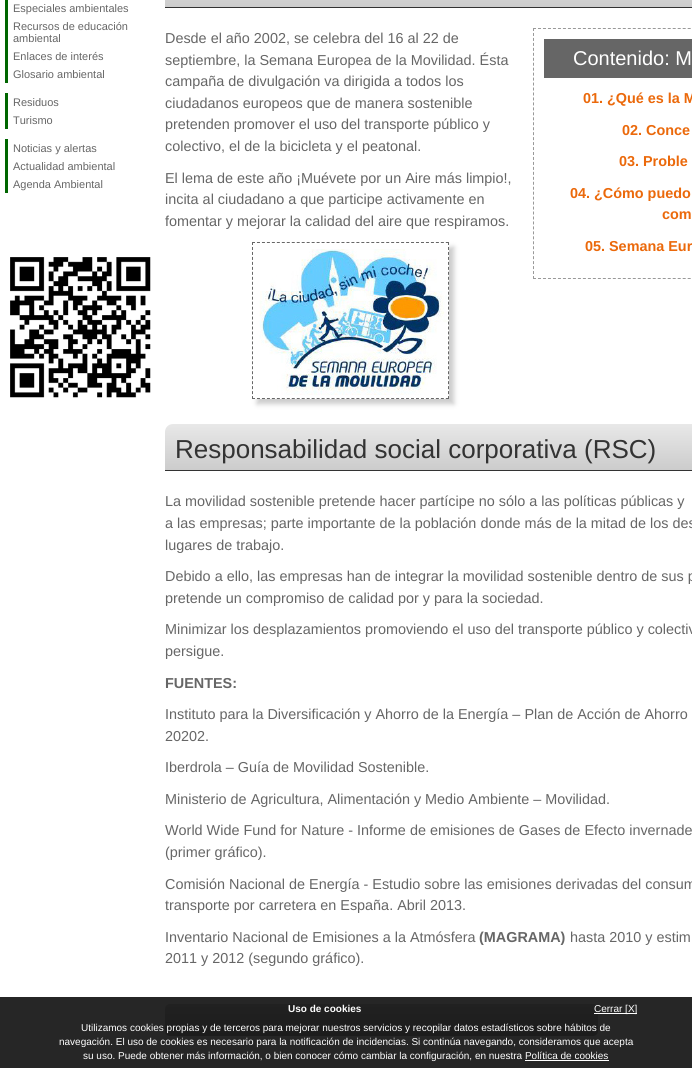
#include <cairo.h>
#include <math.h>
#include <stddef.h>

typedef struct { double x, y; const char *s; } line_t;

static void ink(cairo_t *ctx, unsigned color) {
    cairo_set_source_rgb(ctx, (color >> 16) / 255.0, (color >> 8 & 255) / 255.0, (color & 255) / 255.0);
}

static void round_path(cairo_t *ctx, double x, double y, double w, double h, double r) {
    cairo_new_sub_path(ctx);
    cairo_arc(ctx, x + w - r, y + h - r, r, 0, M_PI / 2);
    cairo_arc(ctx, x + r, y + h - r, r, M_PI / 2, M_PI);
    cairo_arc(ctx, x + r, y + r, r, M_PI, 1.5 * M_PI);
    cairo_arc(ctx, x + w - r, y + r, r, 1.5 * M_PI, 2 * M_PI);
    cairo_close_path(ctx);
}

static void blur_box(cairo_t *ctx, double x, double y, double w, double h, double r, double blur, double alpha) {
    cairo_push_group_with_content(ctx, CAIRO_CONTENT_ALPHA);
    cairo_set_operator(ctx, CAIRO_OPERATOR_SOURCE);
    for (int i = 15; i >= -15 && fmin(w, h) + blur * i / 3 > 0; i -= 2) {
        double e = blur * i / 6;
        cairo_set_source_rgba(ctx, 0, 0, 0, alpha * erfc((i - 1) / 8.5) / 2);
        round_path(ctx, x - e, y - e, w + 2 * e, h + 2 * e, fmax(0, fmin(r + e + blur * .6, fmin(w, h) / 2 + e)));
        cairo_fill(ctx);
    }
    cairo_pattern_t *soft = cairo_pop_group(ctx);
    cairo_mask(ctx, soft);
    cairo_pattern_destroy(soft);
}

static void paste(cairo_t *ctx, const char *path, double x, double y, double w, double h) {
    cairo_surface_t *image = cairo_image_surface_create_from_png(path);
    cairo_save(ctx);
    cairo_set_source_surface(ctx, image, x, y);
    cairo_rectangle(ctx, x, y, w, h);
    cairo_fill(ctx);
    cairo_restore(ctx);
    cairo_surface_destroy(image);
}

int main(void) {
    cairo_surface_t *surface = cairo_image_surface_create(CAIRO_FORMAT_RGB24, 692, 1068);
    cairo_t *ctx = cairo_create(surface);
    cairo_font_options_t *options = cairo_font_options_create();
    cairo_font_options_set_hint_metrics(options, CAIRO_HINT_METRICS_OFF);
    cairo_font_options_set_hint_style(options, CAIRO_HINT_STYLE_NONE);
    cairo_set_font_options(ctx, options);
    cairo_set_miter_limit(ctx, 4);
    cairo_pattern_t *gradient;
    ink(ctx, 0xFFFFFF);
    cairo_paint(ctx);
    ink(ctx, 0x006600);
    cairo_rectangle(ctx, 5, 0, 3, 83);
    cairo_fill(ctx);
    cairo_select_font_face(ctx, "Liberation Sans", CAIRO_FONT_SLANT_NORMAL, CAIRO_FONT_WEIGHT_NORMAL);
    cairo_set_font_size(ctx, 11);
    ink(ctx, 0x666666);
    {
        static const line_t items[] = {
            {13, 12, "Especiales ambientales"},
            {13, 30, "Recursos de educación"},
            {13, 42, "ambiental"},
            {13, 60, "Enlaces de interés"},
            {13, 78, "Glosario ambiental"},
        };
        for (size_t i = 0; i < sizeof items / sizeof *items; i++) {
            cairo_move_to(ctx, items[i].x, items[i].y);
            cairo_show_text(ctx, items[i].s);
        }
    }
    ink(ctx, 0x006600);
    cairo_rectangle(ctx, 5, 93, 3, 36);
    cairo_fill(ctx);
    ink(ctx, 0x666666);
    cairo_move_to(ctx, 13, 106);
    cairo_show_text(ctx, "Residuos");
    cairo_move_to(ctx, 13, 124);
    cairo_show_text(ctx, "Turismo");
    ink(ctx, 0x006600);
    cairo_rectangle(ctx, 5, 139, 3, 54);
    cairo_fill(ctx);
    ink(ctx, 0x666666);
    {
        static const line_t items[] = {
            {13, 152, "Noticias y alertas"},
            {13, 170, "Actualidad ambiental"},
            {13, 188, "Agenda Ambiental"},
        };
        for (size_t i = 0; i < sizeof items / sizeof *items; i++) {
            cairo_move_to(ctx, items[i].x, items[i].y);
            cairo_show_text(ctx, items[i].s);
        }
    }
    paste(ctx, "media/1.png", 10, 257, 141, 141);
    gradient = cairo_pattern_create_linear(530, -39, 530, 7);
    cairo_pattern_add_color_stop_rgba(gradient, 0, 0.91, 0.91, 0.91, 1);
    cairo_pattern_add_color_stop_rgba(gradient, 1, 0.8, 0.8, 0.8, 1);
    cairo_set_source(ctx, gradient);
    cairo_pattern_destroy(gradient);
    cairo_rectangle(ctx, 165, 0, 527, 7);
    cairo_fill(ctx);
    ink(ctx, 0x333333);
    cairo_rectangle(ctx, 165, 7, 527, 1);
    cairo_fill(ctx);
    cairo_set_font_size(ctx, 14.4);
    ink(ctx, 0x666666);
    {
        static const line_t items[] = {
            {165, 43, "Desde el año 2002, se celebra del 16 al 22 de"},
            {165, 65, "septiembre, la Semana Europea de la Movilidad. Ésta"},
            {165, 86, "campaña de divulgación va dirigida a todos los"},
            {165, 108, "ciudadanos europeos que de manera sostenible"},
            {165, 129, "pretenden promover el uso del transporte público y"},
            {165, 151, "colectivo, el de la bicicleta y el peatonal."},
        };
        for (size_t i = 0; i < sizeof items / sizeof *items; i++) {
            cairo_move_to(ctx, items[i].x, items[i].y);
            cairo_show_text(ctx, items[i].s);
        }
    }
    cairo_new_path(ctx);
    cairo_move_to(ctx, 533, 28.5);
    cairo_line_to(ctx, 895, 28.5);
    ink(ctx, 0x999999);
    cairo_set_line_width(ctx, 1);
    cairo_set_dash(ctx, (double[]){3, 1.99}, 2, 0);
    cairo_stroke(ctx);
    cairo_new_path(ctx);
    cairo_move_to(ctx, 533, 278.5);
    cairo_line_to(ctx, 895, 278.5);
    cairo_stroke(ctx);
    cairo_new_path(ctx);
    cairo_move_to(ctx, 533.5, 28);
    cairo_line_to(ctx, 533.5, 279);
    cairo_set_dash(ctx, (double[]){3, 1.96}, 2, 0);
    cairo_stroke(ctx);
    ink(ctx, 0x666666);
    cairo_rectangle(ctx, 544, 39, 148, 39);
    cairo_fill(ctx);
    cairo_set_font_size(ctx, 20);
    ink(ctx, 0xFFFFFF);
    cairo_move_to(ctx, 573, 65);
    cairo_show_text(ctx, "Contenido: M");
    cairo_select_font_face(ctx, "Liberation Sans", CAIRO_FONT_SLANT_NORMAL, CAIRO_FONT_WEIGHT_BOLD);
    cairo_set_font_size(ctx, 14.4);
    ink(ctx, 0xEB690B);
    {
        static const line_t items[] = {
            {583, 103, "01. ¿Qué es la M"},
            {622, 135, "02. Conce"},
            {619, 166, "03. Proble"},
            {570, 198, "04. ¿Cómo puedo"},
            {662, 219, "com"},
            {585, 251, "05. Semana Eur"},
        };
        for (size_t i = 0; i < sizeof items / sizeof *items; i++) {
            cairo_move_to(ctx, items[i].x, items[i].y);
            cairo_show_text(ctx, items[i].s);
        }
    }
    cairo_select_font_face(ctx, "Liberation Sans", CAIRO_FONT_SLANT_NORMAL, CAIRO_FONT_WEIGHT_NORMAL);
    ink(ctx, 0x666666);
    {
        static const line_t items[] = {
            {165, 183, "El lema de este año ¡Muévete por un Aire más limpio!,"},
            {165, 204, "incita al ciudadano a que participe activamente en"},
            {165, 226, "fomentar y mejorar la calidad del aire que respiramos."},
        };
        for (size_t i = 0; i < sizeof items / sizeof *items; i++) {
            cairo_move_to(ctx, items[i].x, items[i].y);
            cairo_show_text(ctx, items[i].s);
        }
    }
    cairo_save(ctx);
    cairo_set_fill_rule(ctx, CAIRO_FILL_RULE_EVEN_ODD);
    cairo_new_path(ctx);
    cairo_move_to(ctx, 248, 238);
    cairo_line_to(ctx, 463, 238);
    cairo_line_to(ctx, 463, 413);
    cairo_line_to(ctx, 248, 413);
    cairo_close_path(ctx);
    cairo_move_to(ctx, 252, 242);
    cairo_line_to(ctx, 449, 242);
    cairo_line_to(ctx, 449, 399);
    cairo_line_to(ctx, 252, 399);
    cairo_close_path(ctx);
    cairo_clip(ctx);
    ink(ctx, 0xCCCCCC);
    blur_box(ctx, 257, 247, 197, 157, 0, 2.5, 1);
    cairo_restore(ctx);
    cairo_new_path(ctx);
    cairo_move_to(ctx, 252, 242.5);
    cairo_line_to(ctx, 449, 242.5);
    cairo_set_dash(ctx, (double[]){3, 1.97}, 2, 0);
    cairo_stroke(ctx);
    cairo_new_path(ctx);
    cairo_move_to(ctx, 448.5, 242);
    cairo_line_to(ctx, 448.5, 399);
    cairo_stroke(ctx);
    cairo_new_path(ctx);
    cairo_move_to(ctx, 252, 398.5);
    cairo_line_to(ctx, 449, 398.5);
    cairo_stroke(ctx);
    cairo_new_path(ctx);
    cairo_move_to(ctx, 252.5, 242);
    cairo_line_to(ctx, 252.5, 399);
    cairo_stroke(ctx);
    paste(ctx, "media/2.png", 259, 249, 189, 146);
    gradient = cairo_pattern_create_linear(530, 424, 530, 470);
    cairo_pattern_add_color_stop_rgba(gradient, 0, 0.91, 0.91, 0.91, 1);
    cairo_pattern_add_color_stop_rgba(gradient, 1, 0.8, 0.8, 0.8, 1);
    cairo_set_source(ctx, gradient);
    cairo_pattern_destroy(gradient);
    cairo_new_path(ctx);
    cairo_move_to(ctx, 173, 424);
    cairo_line_to(ctx, 692, 424);
    cairo_curve_to(ctx, 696.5, 424, 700, 427.5, 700, 432);
    cairo_line_to(ctx, 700, 470);
    cairo_line_to(ctx, 165, 470);
    cairo_line_to(ctx, 165, 432);
    cairo_curve_to(ctx, 165, 427.5, 168.5, 424, 173, 424);
    cairo_close_path(ctx);
    cairo_fill(ctx);
    ink(ctx, 0x333333);
    cairo_rectangle(ctx, 165, 470, 527, 1);
    cairo_fill(ctx);
    cairo_set_font_size(ctx, 26);
    cairo_move_to(ctx, 175, 458);
    cairo_show_text(ctx, "Responsabilidad social corporativa (RSC)");
    cairo_set_font_size(ctx, 14.4);
    ink(ctx, 0x666666);
    {
        static const line_t items[] = {
            {165, 506, "La movilidad sostenible pretende hacer partícipe no sólo a las políticas públicas y"},
            {165, 528, "a las empresas; parte importante de la población donde más de la mitad de los des"},
            {165, 550, "lugares de trabajo."},
            {165, 581, "Debido a ello, las empresas han de integrar la movilidad sostenible dentro de sus p"},
            {165, 603, "pretende un compromiso de calidad por y para la sociedad."},
            {165, 634, "Minimizar los desplazamientos promoviendo el uso del transporte público y colectiv"},
            {165, 656, "persigue."},
        };
        for (size_t i = 0; i < sizeof items / sizeof *items; i++) {
            cairo_move_to(ctx, items[i].x, items[i].y);
            cairo_show_text(ctx, items[i].s);
        }
    }
    cairo_select_font_face(ctx, "Liberation Sans", CAIRO_FONT_SLANT_NORMAL, CAIRO_FONT_WEIGHT_BOLD);
    cairo_move_to(ctx, 165, 688);
    cairo_show_text(ctx, "FUENTES:");
    cairo_select_font_face(ctx, "Liberation Sans", CAIRO_FONT_SLANT_NORMAL, CAIRO_FONT_WEIGHT_NORMAL);
    {
        static const line_t items[] = {
            {165, 719, "Instituto para la Diversificación y Ahorro de la Energía – Plan de Acción de Ahorro"},
            {165, 741, "20202."},
            {165, 772, "Iberdrola – Guía de Movilidad Sostenible."},
            {165, 804, "Ministerio de Agricultura, Alimentación y Medio Ambiente – Movilidad."},
            {165, 835, "World Wide Fund for Nature - Informe de emisiones de Gases de Efecto invernade"},
            {165, 857, "(primer gráfico)."},
            {165, 889, "Comisión Nacional de Energía - Estudio sobre las emisiones derivadas del consum"},
            {165, 910, "transporte por carretera en España. Abril 2013."},
            {165, 942, "Inventario Nacional de Emisiones a la Atmósfera"},
        };
        for (size_t i = 0; i < sizeof items / sizeof *items; i++) {
            cairo_move_to(ctx, items[i].x, items[i].y);
            cairo_show_text(ctx, items[i].s);
        }
    }
    cairo_select_font_face(ctx, "Liberation Sans", CAIRO_FONT_SLANT_NORMAL, CAIRO_FONT_WEIGHT_BOLD);
    cairo_move_to(ctx, 479, 942);
    cairo_show_text(ctx, "(MAGRAMA)");
    cairo_select_font_face(ctx, "Liberation Sans", CAIRO_FONT_SLANT_NORMAL, CAIRO_FONT_WEIGHT_NORMAL);
    cairo_move_to(ctx, 570, 942);
    cairo_show_text(ctx, "hasta 2010 y estim");
    cairo_move_to(ctx, 165, 963);
    cairo_show_text(ctx, "2011 y 2012 (segundo gráfico).");
    gradient = cairo_pattern_create_linear(382, 1004, 382, 1036);
    cairo_pattern_add_color_stop_rgba(gradient, 0, 0.871, 0.871, 0.871, 1);
    cairo_pattern_add_color_stop_rgba(gradient, 1, 0.737, 0.737, 0.737, 1);
    cairo_set_source(ctx, gradient);
    cairo_pattern_destroy(gradient);
    round_path(ctx, 165, 1004, 433, 32, 5);
    cairo_fill(ctx);
    cairo_set_source_rgba(ctx, 0, 0, 0, 0.85);
    cairo_rectangle(ctx, 0, 997, 692, 71);
    cairo_fill(ctx);
    cairo_select_font_face(ctx, "Liberation Sans", CAIRO_FONT_SLANT_NORMAL, CAIRO_FONT_WEIGHT_BOLD);
    cairo_set_font_size(ctx, 10);
    ink(ctx, 0xFFFFFF);
    cairo_move_to(ctx, 288, 1012);
    cairo_show_text(ctx, "Uso de cookies");
    cairo_rectangle(ctx, 594, 1013, 43, 1);
    cairo_fill(ctx);
    cairo_select_font_face(ctx, "Liberation Sans", CAIRO_FONT_SLANT_NORMAL, CAIRO_FONT_WEIGHT_NORMAL);
    {
        static const line_t items[] = {
            {594, 1012, "Cerrar [X]"},
            {81, 1031, "Utilizamos cookies propias y de terceros para mejorar nuestros servicios y recopilar datos estadísticos sobre hábitos de"},
            {59, 1045, "navegación. El uso de cookies es necesario para la notificación de incidencias. Si continúa navegando, consideramos que acepta"},
            {83, 1059, "su uso. Puede obtener más información, o bien conocer cómo cambiar la configuración, en nuestra Política de cookies"},
        };
        for (size_t i = 0; i < sizeof items / sizeof *items; i++) {
            cairo_move_to(ctx, items[i].x, items[i].y);
            cairo_show_text(ctx, items[i].s);
        }
    }
    cairo_rectangle(ctx, 525, 1060, 84, 1);
    cairo_fill(ctx);
    cairo_surface_write_to_png(surface, "image.png");
    cairo_font_options_destroy(options);
    cairo_destroy(ctx);
    cairo_surface_destroy(surface);
    return 0;
}
